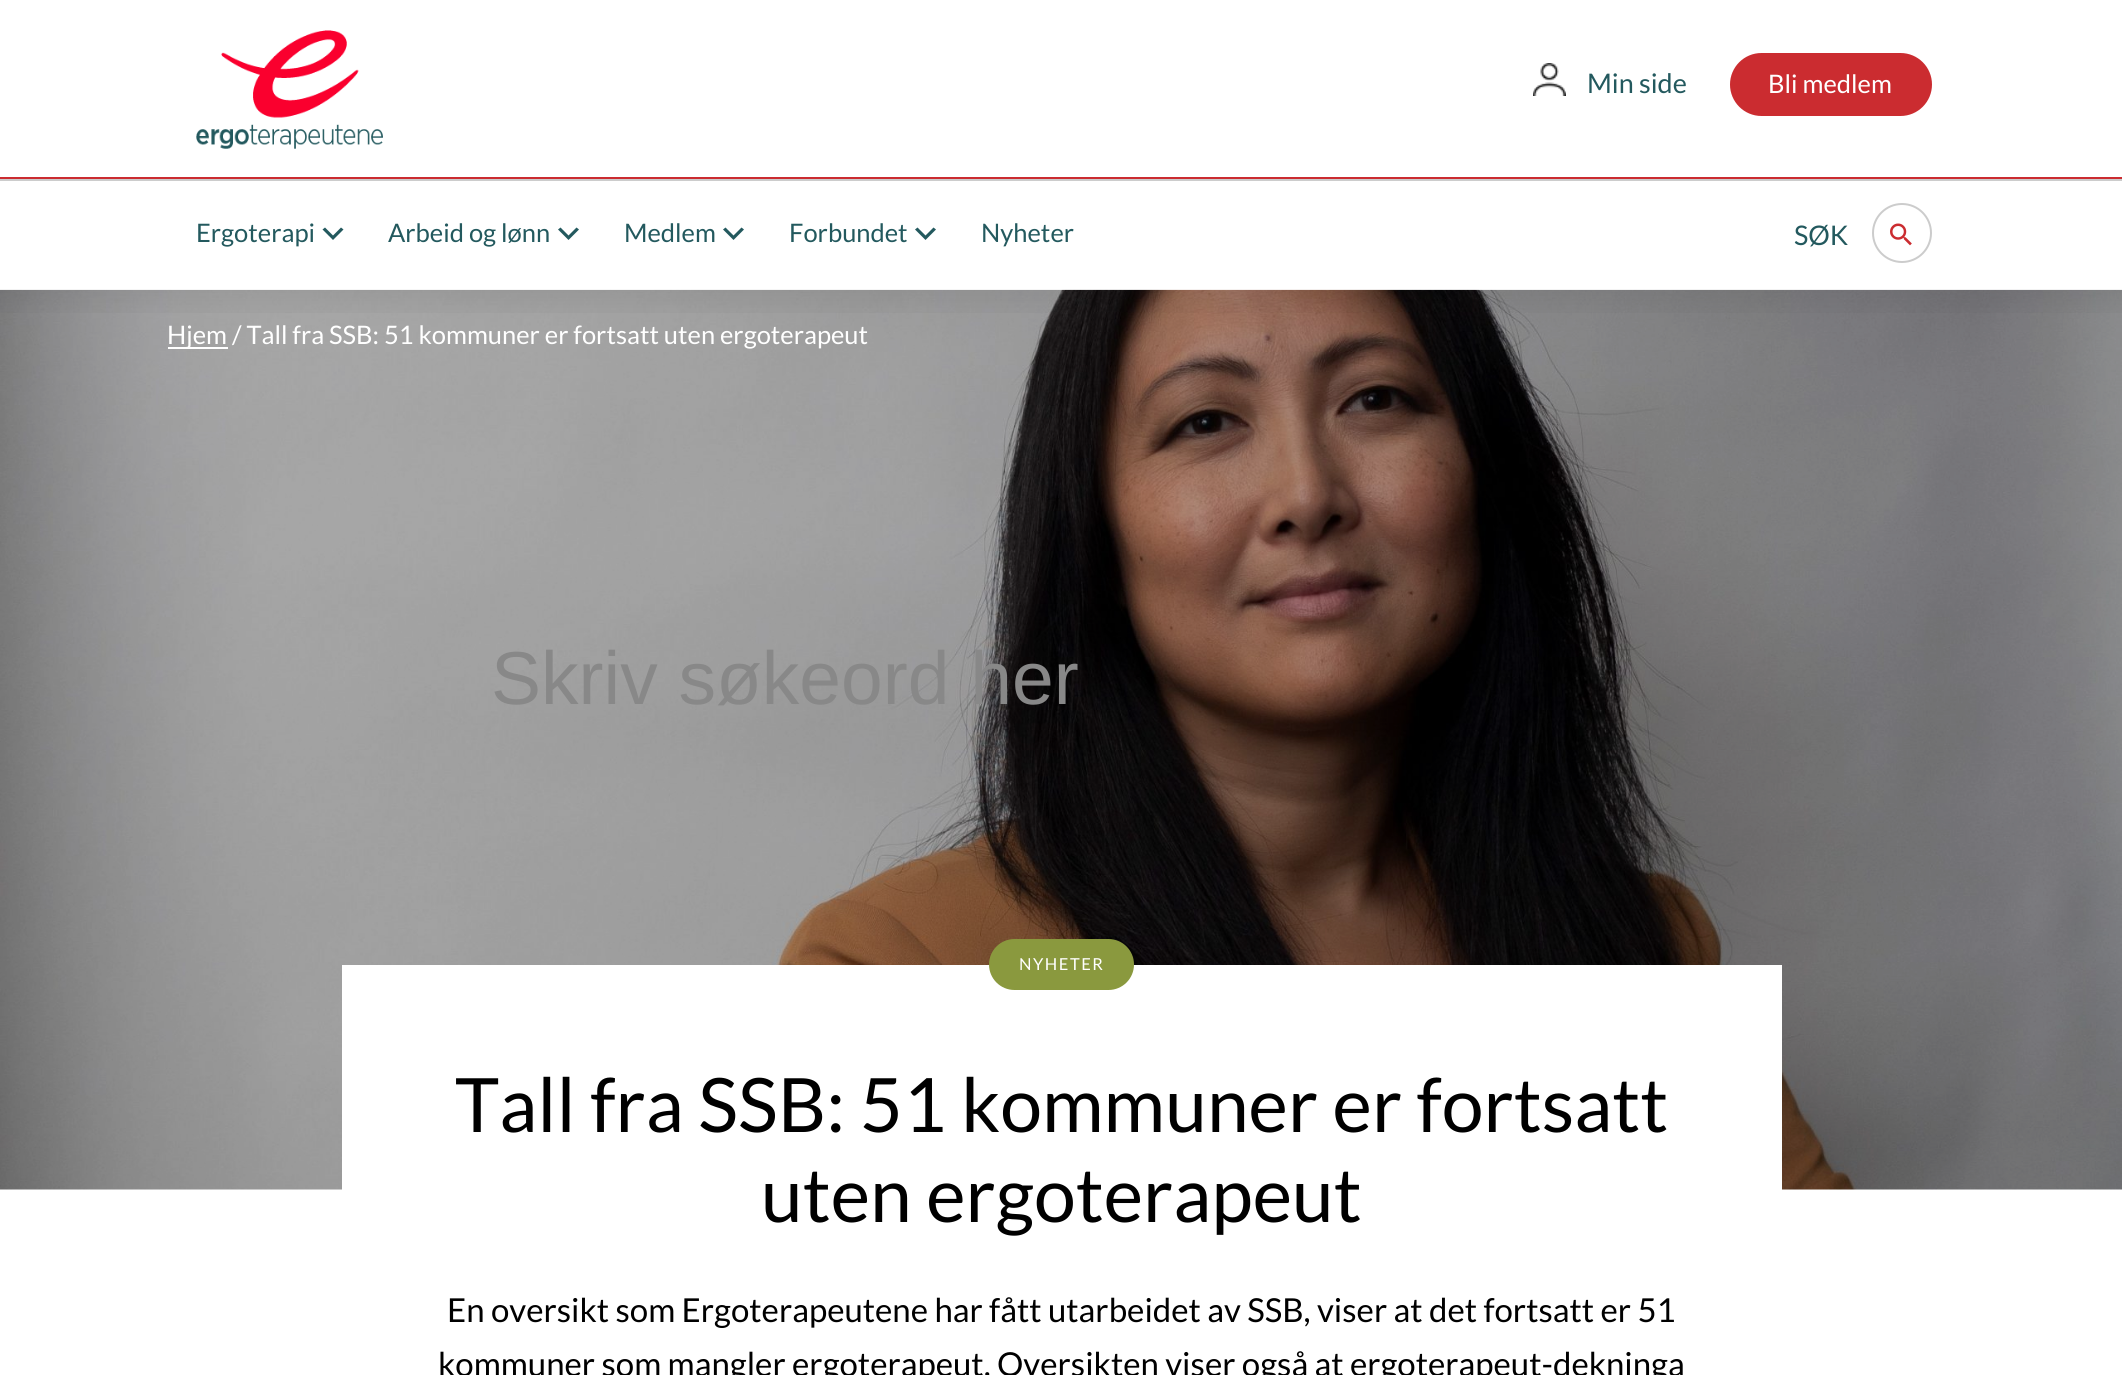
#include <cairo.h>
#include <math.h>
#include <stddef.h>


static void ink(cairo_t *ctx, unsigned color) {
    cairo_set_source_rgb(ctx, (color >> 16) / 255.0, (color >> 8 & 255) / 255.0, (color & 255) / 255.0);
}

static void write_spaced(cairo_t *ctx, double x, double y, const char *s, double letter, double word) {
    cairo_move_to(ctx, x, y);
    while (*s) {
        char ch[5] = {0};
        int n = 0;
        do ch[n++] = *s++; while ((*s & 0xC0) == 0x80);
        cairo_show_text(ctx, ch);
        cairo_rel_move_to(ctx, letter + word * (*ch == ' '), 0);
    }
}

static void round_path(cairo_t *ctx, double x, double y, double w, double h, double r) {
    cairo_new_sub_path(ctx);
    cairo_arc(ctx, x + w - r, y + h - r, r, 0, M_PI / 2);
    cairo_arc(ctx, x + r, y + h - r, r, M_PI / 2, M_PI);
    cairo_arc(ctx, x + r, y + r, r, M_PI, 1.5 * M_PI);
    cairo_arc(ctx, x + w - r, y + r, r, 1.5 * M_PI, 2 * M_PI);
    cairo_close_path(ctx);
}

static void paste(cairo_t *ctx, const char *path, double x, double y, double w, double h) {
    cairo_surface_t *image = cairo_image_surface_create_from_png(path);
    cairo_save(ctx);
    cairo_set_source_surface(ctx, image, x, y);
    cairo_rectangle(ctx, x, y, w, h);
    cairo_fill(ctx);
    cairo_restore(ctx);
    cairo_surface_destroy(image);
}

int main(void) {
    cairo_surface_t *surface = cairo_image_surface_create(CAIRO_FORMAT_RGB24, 2122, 1375);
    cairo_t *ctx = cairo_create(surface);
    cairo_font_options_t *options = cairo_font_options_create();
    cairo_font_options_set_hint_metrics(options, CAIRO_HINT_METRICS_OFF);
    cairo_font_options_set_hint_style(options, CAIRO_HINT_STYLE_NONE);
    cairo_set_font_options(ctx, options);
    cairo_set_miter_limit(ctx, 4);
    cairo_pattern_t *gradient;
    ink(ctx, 0xFFFFFF);
    cairo_paint(ctx);
    ink(ctx, 0xCB2C30);
    cairo_rectangle(ctx, 0, 177, 2122, 2);
    cairo_fill(ctx);
    paste(ctx, "media/1.png", 196, 30, 187, 119);
    paste(ctx, "media/2.png", 1533, 63, 33, 33);
    cairo_select_font_face(ctx, "Lato", CAIRO_FONT_SLANT_NORMAL, CAIRO_FONT_WEIGHT_NORMAL);
    cairo_set_font_size(ctx, 27);
    ink(ctx, 0x23595E);
    cairo_move_to(ctx, 1587, 93);
    cairo_show_text(ctx, "Min side");
    ink(ctx, 0xCB2C30);
    round_path(ctx, 1731, 54, 200, 61, 30.5);
    cairo_fill_preserve(ctx);
    cairo_stroke(ctx);
    cairo_set_font_size(ctx, 25.5);
    ink(ctx, 0xFFFFFF);
    cairo_move_to(ctx, 1768, 93);
    cairo_show_text(ctx, "Bli medlem");
    paste(ctx, "media/4.png", 0, 289, 2122, 901);
    cairo_set_source_rgba(ctx, 1, 1, 1, 0.8);
    cairo_rectangle(ctx, 0, 289, 2122, 1);
    cairo_fill(ctx);
    ink(ctx, 0xCCCCCC);
    cairo_rectangle(ctx, 0, 179, 2122, 2);
    cairo_fill(ctx);
    ink(ctx, 0x23595E);
    cairo_move_to(ctx, 196, 242);
    cairo_show_text(ctx, "Ergoterapi");
    cairo_new_path(ctx);
    cairo_move_to(ctx, 341, 227.5);
    cairo_line_to(ctx, 343.5, 229.5);
    cairo_line_to(ctx, 333, 240);
    cairo_line_to(ctx, 322.5, 229.5);
    cairo_line_to(ctx, 325, 227.5);
    cairo_line_to(ctx, 333, 235.5);
    cairo_close_path(ctx);
    cairo_fill(ctx);
    cairo_move_to(ctx, 388, 242);
    cairo_show_text(ctx, "Arbeid og lønn");
    cairo_new_path(ctx);
    cairo_move_to(ctx, 576.5, 227.5);
    cairo_line_to(ctx, 579, 229.5);
    cairo_line_to(ctx, 568.5, 240);
    cairo_line_to(ctx, 558, 229.5);
    cairo_line_to(ctx, 560.5, 227.5);
    cairo_line_to(ctx, 568.5, 235.5);
    cairo_close_path(ctx);
    cairo_fill(ctx);
    cairo_move_to(ctx, 624, 242);
    cairo_show_text(ctx, "Medlem");
    cairo_new_path(ctx);
    cairo_move_to(ctx, 741.5, 227.5);
    cairo_line_to(ctx, 744, 229.5);
    cairo_line_to(ctx, 733.5, 240);
    cairo_line_to(ctx, 723, 229.5);
    cairo_line_to(ctx, 725.5, 227.5);
    cairo_line_to(ctx, 733.5, 235.5);
    cairo_close_path(ctx);
    cairo_fill(ctx);
    cairo_move_to(ctx, 789, 242);
    cairo_show_text(ctx, "Forbundet");
    cairo_new_path(ctx);
    cairo_move_to(ctx, 933.5, 227.5);
    cairo_line_to(ctx, 936, 229.5);
    cairo_line_to(ctx, 925.5, 240);
    cairo_line_to(ctx, 915, 229.5);
    cairo_line_to(ctx, 917.5, 227.5);
    cairo_line_to(ctx, 925.5, 235.5);
    cairo_close_path(ctx);
    cairo_fill(ctx);
    cairo_move_to(ctx, 981, 242);
    cairo_show_text(ctx, "Nyheter");
    cairo_set_font_size(ctx, 27);
    cairo_move_to(ctx, 1794, 245);
    cairo_show_text(ctx, "SØK");
    cairo_new_path(ctx);
    cairo_arc(ctx, 1902, 233, 29, 0, 2 * M_PI);
    ink(ctx, 0xCCCCCC);
    cairo_stroke(ctx);
    paste(ctx, "media/3.png", 1890, 223, 22, 23);
    gradient = cairo_pattern_create_linear(1062, 289, 1062, 326);
    cairo_pattern_add_color_stop_rgba(gradient, 0, 0, 0, 0, 0.06);
    cairo_pattern_add_color_stop_rgba(gradient, 1, 0, 0, 0, 0);
    cairo_set_source(ctx, gradient);
    cairo_pattern_destroy(gradient);
    cairo_rectangle(ctx, 0, 290, 2122, 23);
    cairo_fill(ctx);
    ink(ctx, 0xFFFFFF);
    cairo_rectangle(ctx, 168, 347, 60, 2);
    cairo_fill(ctx);
    cairo_set_font_size(ctx, 25.5);
    cairo_move_to(ctx, 167, 344);
    cairo_show_text(ctx, "Hjem / Tall fra SSB: 51 kommuner er fortsatt uten ergoterapeut");
    cairo_select_font_face(ctx, "Liberation Sans", CAIRO_FONT_SLANT_NORMAL, CAIRO_FONT_WEIGHT_NORMAL);
    cairo_set_font_size(ctx, 75);
    ink(ctx, 0x888888);
    cairo_move_to(ctx, 491, 704);
    cairo_show_text(ctx, "Skriv søkeord her");
    ink(ctx, 0xFFFFFF);
    cairo_rectangle(ctx, 342, 965, 1440, 225);
    cairo_fill(ctx);
    ink(ctx, 0x8A993E);
    round_path(ctx, 989, 939, 145, 51, 25.5);
    cairo_fill(ctx);
    cairo_select_font_face(ctx, "Lato", CAIRO_FONT_SLANT_NORMAL, CAIRO_FONT_WEIGHT_NORMAL);
    cairo_set_font_size(ctx, 16.5);
    ink(ctx, 0xFFFFFF);
    write_spaced(ctx, 1019, 970, "NYHETER", 1.5, 0);
    cairo_set_font_size(ctx, 75);
    ink(ctx, 0x000000);
    cairo_move_to(ctx, 455, 1132);
    cairo_show_text(ctx, "Tall fra SSB: 51 kommuner er fortsatt");
    cairo_move_to(ctx, 761, 1222);
    cairo_show_text(ctx, "uten ergoterapeut");
    cairo_set_font_size(ctx, 33);
    cairo_move_to(ctx, 447, 1322);
    cairo_show_text(ctx, "En oversikt som Ergoterapeutene har fått utarbeidet av SSB, viser at det fortsatt er 51");
    cairo_move_to(ctx, 438, 1376);
    cairo_show_text(ctx, "kommuner som mangler ergoterapeut. Oversikten viser også at ergoterapeut-dekninga");
    cairo_surface_write_to_png(surface, "image.png");
    cairo_font_options_destroy(options);
    cairo_destroy(ctx);
    cairo_surface_destroy(surface);
    return 0;
}
